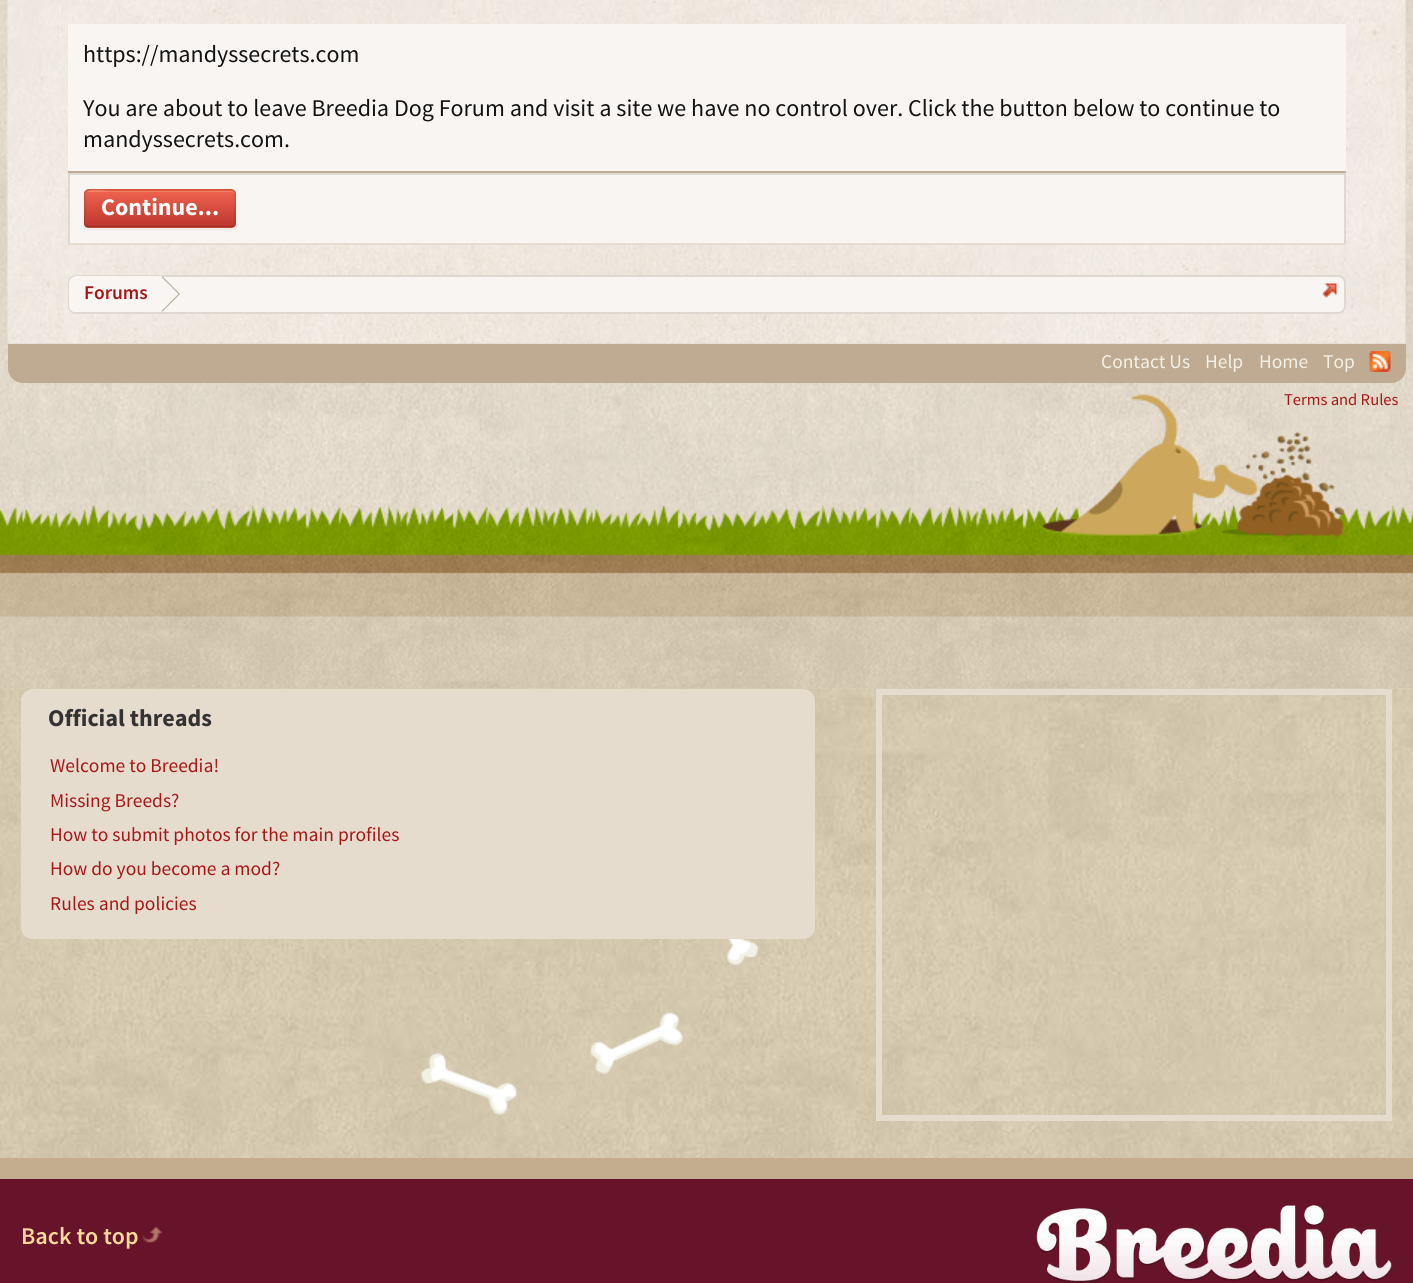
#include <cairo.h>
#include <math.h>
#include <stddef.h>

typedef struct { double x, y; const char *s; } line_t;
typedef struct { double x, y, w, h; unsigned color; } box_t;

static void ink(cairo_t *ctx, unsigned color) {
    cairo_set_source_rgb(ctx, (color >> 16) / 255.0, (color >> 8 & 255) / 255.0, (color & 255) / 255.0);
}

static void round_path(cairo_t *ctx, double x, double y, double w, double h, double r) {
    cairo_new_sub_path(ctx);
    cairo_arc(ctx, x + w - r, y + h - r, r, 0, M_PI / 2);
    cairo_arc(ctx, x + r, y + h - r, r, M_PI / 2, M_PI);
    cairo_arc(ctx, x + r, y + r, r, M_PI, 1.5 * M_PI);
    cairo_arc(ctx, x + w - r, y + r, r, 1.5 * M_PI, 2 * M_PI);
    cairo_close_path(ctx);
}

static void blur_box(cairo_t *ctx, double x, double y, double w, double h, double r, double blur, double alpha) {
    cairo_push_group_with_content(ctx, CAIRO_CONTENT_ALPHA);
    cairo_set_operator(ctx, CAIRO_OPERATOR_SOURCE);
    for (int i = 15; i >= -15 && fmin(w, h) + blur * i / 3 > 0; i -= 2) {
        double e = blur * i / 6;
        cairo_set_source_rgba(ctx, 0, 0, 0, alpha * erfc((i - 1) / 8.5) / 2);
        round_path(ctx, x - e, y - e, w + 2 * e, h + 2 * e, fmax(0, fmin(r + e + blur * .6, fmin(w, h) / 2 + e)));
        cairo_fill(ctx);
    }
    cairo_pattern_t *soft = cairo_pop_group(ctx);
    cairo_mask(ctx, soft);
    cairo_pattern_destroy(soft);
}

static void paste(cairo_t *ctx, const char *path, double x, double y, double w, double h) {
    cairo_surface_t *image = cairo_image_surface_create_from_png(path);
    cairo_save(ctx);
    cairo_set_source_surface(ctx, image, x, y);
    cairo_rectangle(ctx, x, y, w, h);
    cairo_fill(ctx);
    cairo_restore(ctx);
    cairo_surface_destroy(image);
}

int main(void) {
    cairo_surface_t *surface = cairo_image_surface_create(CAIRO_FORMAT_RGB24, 1413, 1283);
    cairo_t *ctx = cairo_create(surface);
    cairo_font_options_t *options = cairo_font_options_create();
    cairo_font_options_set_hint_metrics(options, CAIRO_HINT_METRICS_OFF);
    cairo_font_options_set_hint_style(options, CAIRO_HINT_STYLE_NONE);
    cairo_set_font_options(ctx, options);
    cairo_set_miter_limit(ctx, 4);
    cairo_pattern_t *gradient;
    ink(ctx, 0xFFFFFF);
    cairo_paint(ctx);
    paste(ctx, "media/1.png", 0, 0, 1413, 689);
    paste(ctx, "media/2.png", 7, 0, 1399, 344);
    ink(ctx, 0xF9F5F2);
    cairo_rectangle(ctx, 68, 24, 1278, 147);
    cairo_fill(ctx);
    ink(ctx, 0xBEAB92);
    cairo_rectangle(ctx, 68, 171, 1278, 2);
    cairo_fill(ctx);
    cairo_select_font_face(ctx, "Source Sans Pro", CAIRO_FONT_SLANT_NORMAL, CAIRO_FONT_WEIGHT_NORMAL);
    cairo_set_font_size(ctx, 24);
    ink(ctx, 0x141414);
    {
        static const line_t items[] = {
            {83, 62, "https://mandyssecrets.com"},
            {83, 116, "You are about to leave Breedia Dog Forum and visit a site we have no control over. Click the button below to continue to"},
            {83, 147, "mandyssecrets.com."},
        };
        for (size_t i = 0; i < sizeof items / sizeof *items; i++) {
            cairo_move_to(ctx, items[i].x, items[i].y);
            cairo_show_text(ctx, items[i].s);
        }
    }
    {
        static const box_t items[] = {
            {70, 175, 1274, 68, 0xF9F5F2},
            {68, 173, 1278, 2, 0xDDD9D1},
            {1344, 173, 2, 72, 0xDDD9D1},
            {68, 243, 1278, 2, 0xE6DDCF},
            {68, 173, 2, 72, 0xDDD9D1},
        };
        for (size_t i = 0; i < sizeof items / sizeof *items; i++) {
            ink(ctx, items[i].color);
            cairo_rectangle(ctx, items[i].x, items[i].y, items[i].w, items[i].h);
            cairo_fill(ctx);
        }
    }
    ink(ctx, 0x000000);
    blur_box(ctx, 84, 191, 152, 39, 5, 1.5, 0.05);
    ink(ctx, 0xEB5D37);
    round_path(ctx, 84, 189, 152, 39, 5);
    cairo_fill(ctx);
    cairo_save(ctx);
    round_path(ctx, 84, 189, 152, 39, 5);
    cairo_clip(ctx);
    gradient = cairo_pattern_create_linear(160, 191, 160, 227);
    cairo_pattern_add_color_stop_rgba(gradient, 0, 0.933, 0.388, 0.302, 1);
    cairo_pattern_add_color_stop_rgba(gradient, 1, 0.741, 0.212, 0.184, 1);
    cairo_set_source(ctx, gradient);
    cairo_pattern_destroy(gradient);
    cairo_rectangle(ctx, 84, 191, 152, 36);
    cairo_fill(ctx);
    cairo_restore(ctx);
    cairo_set_source_rgba(ctx, 1, 1, 1, 0.2);
    cairo_new_path(ctx);
    cairo_move_to(ctx, 88, 192);
    cairo_line_to(ctx, 231, 192);
    cairo_curve_to(ctx, 233, 192, 234, 193, 234, 195);
    cairo_curve_to(ctx, 234, 193, 234, 192, 232, 191);
    cairo_line_to(ctx, 113, 191);
    cairo_curve_to(ctx, 105, 191, 86, 186, 86, 195);
    cairo_curve_to(ctx, 86, 193, 87, 192, 88, 192);
    cairo_close_path(ctx);
    cairo_fill(ctx);
    cairo_new_path(ctx);
    cairo_move_to(ctx, 233.5, 226);
    cairo_curve_to(ctx, 233, 227, 232, 227, 231, 227);
    cairo_line_to(ctx, 88.5, 227);
    cairo_curve_to(ctx, 87.5, 227, 86.5, 227, 86, 226);
    cairo_set_source_rgba(ctx, 0, 0, 0, 0.25);
    cairo_set_line_width(ctx, 1.5);
    cairo_stroke(ctx);
    cairo_new_path(ctx);
    cairo_move_to(ctx, 86, 226);
    cairo_curve_to(ctx, 83.5, 223.5, 85, 216, 85, 213.5);
    cairo_curve_to(ctx, 85, 184, 79.5, 190, 112, 190);
    cairo_line_to(ctx, 207, 190);
    cairo_curve_to(ctx, 240, 190, 235, 184, 235, 213.5);
    cairo_curve_to(ctx, 235, 216, 236, 223.5, 233.5, 226);
    cairo_set_source_rgba(ctx, 0, 0, 0, 0.1);
    cairo_stroke(ctx);
    cairo_select_font_face(ctx, "Source Sans Pro", CAIRO_FONT_SLANT_NORMAL, CAIRO_FONT_WEIGHT_BOLD);
    ink(ctx, 0xFFFFFF);
    cairo_move_to(ctx, 101, 215);
    cairo_show_text(ctx, "Continue...");
    ink(ctx, 0xF9F5F2);
    round_path(ctx, 69, 276, 1276, 37, 7);
    cairo_fill_preserve(ctx);
    ink(ctx, 0xDDD9D1);
    cairo_set_line_width(ctx, 2);
    cairo_stroke(ctx);
    cairo_save(ctx);
    round_path(ctx, 69, 276, 1275, 36, 6);
    cairo_clip(ctx);
    ink(ctx, 0xF9F5F2);
    cairo_new_path(ctx);
    cairo_move_to(ctx, 77, 276);
    cairo_line_to(ctx, 162, 276);
    cairo_line_to(ctx, 162, 314);
    cairo_line_to(ctx, 77, 314);
    cairo_curve_to(ctx, 72.5, 314, 69, 310.5, 69, 306);
    cairo_line_to(ctx, 69, 284);
    cairo_curve_to(ctx, 69, 279.5, 72.5, 276, 77, 276);
    cairo_close_path(ctx);
    cairo_fill(ctx);
    cairo_restore(ctx);
    cairo_select_font_face(ctx, "Source Sans Pro SemiBold", CAIRO_FONT_SLANT_NORMAL, CAIRO_FONT_WEIGHT_NORMAL);
    cairo_set_font_size(ctx, 19.5);
    ink(ctx, 0xA61818);
    cairo_move_to(ctx, 84, 299);
    cairo_show_text(ctx, "Forums");
    ink(ctx, 0xB3AD99);
    cairo_new_path(ctx);
    cairo_move_to(ctx, 162, 312);
    cairo_line_to(ctx, 162, 276);
    cairo_line_to(ctx, 180, 294);
    cairo_close_path(ctx);
    cairo_fill(ctx);
    ink(ctx, 0xF9F5F2);
    cairo_new_path(ctx);
    cairo_move_to(ctx, 160.5, 312);
    cairo_line_to(ctx, 160.5, 276);
    cairo_line_to(ctx, 178.5, 294);
    cairo_close_path(ctx);
    cairo_fill(ctx);
    paste(ctx, "media/3.png", 1322, 283, 15, 15);
    ink(ctx, 0xBEAB92);
    cairo_new_path(ctx);
    cairo_move_to(ctx, 8, 344);
    cairo_line_to(ctx, 1406, 344);
    cairo_line_to(ctx, 1406, 368);
    cairo_curve_to(ctx, 1406, 376.5, 1399.5, 383, 1391, 383);
    cairo_line_to(ctx, 23, 383);
    cairo_curve_to(ctx, 14.5, 383, 8, 376.5, 8, 368);
    cairo_close_path(ctx);
    cairo_fill(ctx);
    cairo_select_font_face(ctx, "Source Sans Pro", CAIRO_FONT_SLANT_NORMAL, CAIRO_FONT_WEIGHT_NORMAL);
    ink(ctx, 0xF5F1E6);
    {
        static const line_t items[] = {
            {1101, 368, "Contact Us"},
            {1205, 368, "Help"},
            {1259, 368, "Home"},
            {1323, 368, "Top"},
        };
        for (size_t i = 0; i < sizeof items / sizeof *items; i++) {
            cairo_move_to(ctx, items[i].x, items[i].y);
            cairo_show_text(ctx, items[i].s);
        }
    }
    paste(ctx, "media/4.png", 1369, 351, 22, 21);
    cairo_set_font_size(ctx, 16.5);
    ink(ctx, 0xA61818);
    cairo_move_to(ctx, 1284, 405);
    cairo_show_text(ctx, "Terms and Rules");
    paste(ctx, "media/5.png", 0, 505, 1413, 184);
    paste(ctx, "media/6.png", 0, 688, 1413, 470);
    paste(ctx, "media/7.png", 421, 939, 339, 176);
    paste(ctx, "media/8.png", 1042, 394, 303, 144);
    ink(ctx, 0xE6DCCE);
    round_path(ctx, 21, 689, 794, 250, 12);
    cairo_fill(ctx);
    cairo_select_font_face(ctx, "Source Sans Pro", CAIRO_FONT_SLANT_NORMAL, CAIRO_FONT_WEIGHT_BOLD);
    cairo_set_font_size(ctx, 24);
    ink(ctx, 0x333333);
    cairo_move_to(ctx, 48, 726);
    cairo_show_text(ctx, "Official threads");
    cairo_select_font_face(ctx, "Source Sans Pro", CAIRO_FONT_SLANT_NORMAL, CAIRO_FONT_WEIGHT_NORMAL);
    cairo_set_font_size(ctx, 19.5);
    ink(ctx, 0xA61818);
    {
        static const line_t items[] = {
            {50, 772, "Welcome to Breedia!"},
            {50, 807, "Missing Breeds?"},
            {50, 841, "How to submit photos for the main profiles"},
            {50, 875, "How do you become a mod?"},
            {50, 910, "Rules and policies"},
        };
        for (size_t i = 0; i < sizeof items / sizeof *items; i++) {
            cairo_move_to(ctx, items[i].x, items[i].y);
            cairo_show_text(ctx, items[i].s);
        }
    }
    cairo_rectangle(ctx, 879, 692, 510, 426);
    ink(ctx, 0xE6DCCE);
    cairo_set_line_width(ctx, 6);
    cairo_stroke(ctx);
    ink(ctx, 0x67132A);
    cairo_rectangle(ctx, 0, 1179, 1413, 104);
    cairo_fill(ctx);
    ink(ctx, 0xC3AD8E);
    cairo_rectangle(ctx, 0, 1158, 1413, 21);
    cairo_fill(ctx);
    cairo_select_font_face(ctx, "Source Sans Pro SemiBold", CAIRO_FONT_SLANT_NORMAL, CAIRO_FONT_WEIGHT_NORMAL);
    cairo_set_font_size(ctx, 24);
    ink(ctx, 0xFFD89B);
    cairo_move_to(ctx, 21, 1244);
    cairo_show_text(ctx, "Back to top");
    paste(ctx, "media/9.png", 142, 1226, 20, 17);
    paste(ctx, "media/10.png", 1036, 1205, 356, 78);
    cairo_surface_write_to_png(surface, "image.png");
    cairo_font_options_destroy(options);
    cairo_destroy(ctx);
    cairo_surface_destroy(surface);
    return 0;
}
